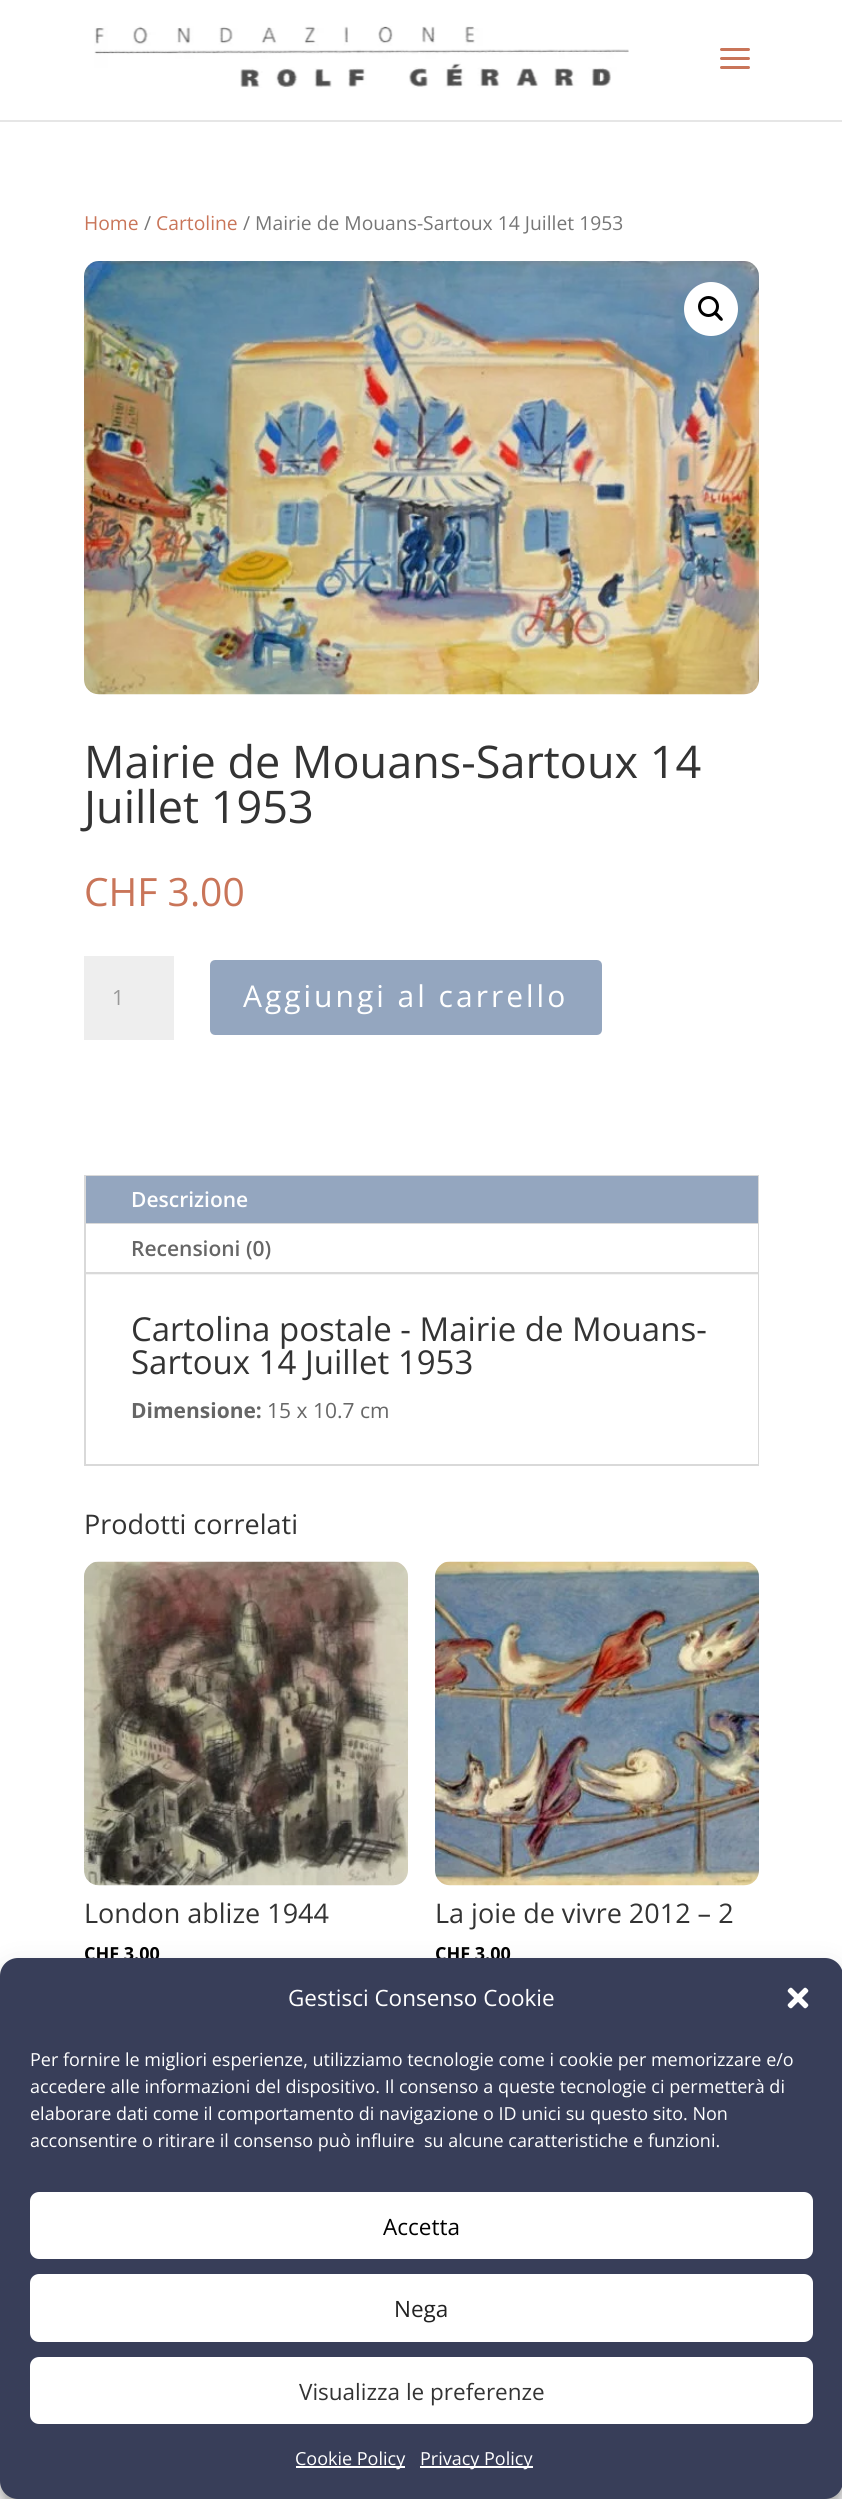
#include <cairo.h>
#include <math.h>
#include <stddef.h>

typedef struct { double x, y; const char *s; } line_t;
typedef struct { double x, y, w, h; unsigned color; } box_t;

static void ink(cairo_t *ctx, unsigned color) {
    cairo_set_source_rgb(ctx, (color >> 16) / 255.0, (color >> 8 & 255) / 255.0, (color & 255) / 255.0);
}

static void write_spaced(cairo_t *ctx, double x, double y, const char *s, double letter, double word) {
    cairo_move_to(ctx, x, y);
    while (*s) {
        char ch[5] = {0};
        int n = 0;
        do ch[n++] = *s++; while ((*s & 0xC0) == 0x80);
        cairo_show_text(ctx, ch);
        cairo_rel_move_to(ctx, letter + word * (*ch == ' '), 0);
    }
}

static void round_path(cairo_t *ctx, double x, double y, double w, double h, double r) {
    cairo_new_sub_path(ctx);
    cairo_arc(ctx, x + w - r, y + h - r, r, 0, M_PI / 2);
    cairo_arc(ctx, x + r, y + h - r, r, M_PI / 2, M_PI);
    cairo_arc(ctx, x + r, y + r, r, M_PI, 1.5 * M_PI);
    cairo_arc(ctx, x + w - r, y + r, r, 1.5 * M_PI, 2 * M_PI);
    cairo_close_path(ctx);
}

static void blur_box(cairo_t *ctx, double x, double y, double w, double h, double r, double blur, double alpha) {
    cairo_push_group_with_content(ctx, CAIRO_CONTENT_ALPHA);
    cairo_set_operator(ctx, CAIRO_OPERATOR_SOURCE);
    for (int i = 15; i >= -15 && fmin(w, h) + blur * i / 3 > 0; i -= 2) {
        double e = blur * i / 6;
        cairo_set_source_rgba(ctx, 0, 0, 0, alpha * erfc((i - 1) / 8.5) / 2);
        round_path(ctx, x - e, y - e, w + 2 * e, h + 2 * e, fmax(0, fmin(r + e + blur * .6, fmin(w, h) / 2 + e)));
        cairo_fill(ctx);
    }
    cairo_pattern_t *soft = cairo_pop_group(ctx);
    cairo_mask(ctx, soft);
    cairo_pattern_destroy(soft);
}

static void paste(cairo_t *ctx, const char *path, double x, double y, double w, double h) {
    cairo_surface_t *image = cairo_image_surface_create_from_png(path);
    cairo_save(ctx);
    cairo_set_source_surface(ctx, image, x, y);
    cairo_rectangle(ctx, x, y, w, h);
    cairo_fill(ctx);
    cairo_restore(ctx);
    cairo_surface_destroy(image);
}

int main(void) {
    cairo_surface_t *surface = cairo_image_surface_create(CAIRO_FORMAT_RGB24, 842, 2499);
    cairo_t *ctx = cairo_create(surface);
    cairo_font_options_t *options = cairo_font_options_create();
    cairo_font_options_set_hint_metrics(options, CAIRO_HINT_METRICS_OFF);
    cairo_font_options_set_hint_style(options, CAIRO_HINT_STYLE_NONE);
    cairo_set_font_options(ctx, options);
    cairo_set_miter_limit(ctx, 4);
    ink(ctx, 0xFFFFFF);
    cairo_paint(ctx);
    ink(ctx, 0xE6E6E6);
    cairo_rectangle(ctx, 0, 120, 842, 2);
    cairo_fill(ctx);
    paste(ctx, "media/1.png", 94, 26, 535, 62);
    paste(ctx, "media/2.png", 720, 48, 30, 21);
    cairo_select_font_face(ctx, "Open Sans", CAIRO_FONT_SLANT_NORMAL, CAIRO_FONT_WEIGHT_NORMAL);
    cairo_set_font_size(ctx, 19.3);
    ink(ctx, 0xC97559);
    cairo_move_to(ctx, 84, 230);
    cairo_show_text(ctx, "Home");
    ink(ctx, 0x767676);
    cairo_move_to(ctx, 144, 230);
    cairo_show_text(ctx, "/");
    ink(ctx, 0xC97559);
    cairo_move_to(ctx, 156, 230);
    cairo_show_text(ctx, "Cartoline");
    ink(ctx, 0x767676);
    cairo_move_to(ctx, 243, 230);
    cairo_show_text(ctx, "/ Mairie de Mouans-Sartoux 14 Juillet 1953");
    paste(ctx, "media/3.png", 84, 261, 675, 434);
    ink(ctx, 0xFFFFFF);
    cairo_arc(ctx, 711, 309, 27, 0, 2 * M_PI);
    cairo_fill(ctx);
    cairo_arc(ctx, 708.5, 306.5, 9, 0, 2 * M_PI);
    ink(ctx, 0x000000);
    cairo_set_line_width(ctx, 3);
    cairo_stroke(ctx);
    cairo_new_path(ctx);
    cairo_move_to(ctx, 714, 312);
    cairo_curve_to(ctx, 715.5, 310, 718.5, 314, 719.5, 315);
    cairo_curve_to(ctx, 720, 316, 724, 318.5, 722.5, 320.5);
    cairo_curve_to(ctx, 720.5, 322, 718, 318, 717, 317);
    cairo_curve_to(ctx, 716, 316, 712, 313.5, 714, 312);
    cairo_close_path(ctx);
    cairo_fill(ctx);
    cairo_set_font_size(ctx, 45);
    ink(ctx, 0x333333);
    cairo_move_to(ctx, 84, 778);
    cairo_show_text(ctx, "Mairie de Mouans-Sartoux 14");
    cairo_move_to(ctx, 84, 823);
    cairo_show_text(ctx, "Juillet 1953");
    cairo_set_font_size(ctx, 39);
    ink(ctx, 0xC97559);
    cairo_move_to(ctx, 84, 906);
    cairo_show_text(ctx, "CHF 3.00");
    ink(ctx, 0xEEEEEE);
    cairo_rectangle(ctx, 84, 956, 90, 84);
    cairo_fill(ctx);
    cairo_set_font_size(ctx, 21);
    ink(ctx, 0x999999);
    cairo_move_to(ctx, 112, 1005);
    cairo_show_text(ctx, "1");
    ink(ctx, 0x94A6BF);
    round_path(ctx, 211.5, 961.5, 389, 72, 3.5);
    cairo_fill_preserve(ctx);
    cairo_stroke(ctx);
    cairo_set_font_size(ctx, 30);
    ink(ctx, 0xFFFFFF);
    write_spaced(ctx, 243, 1007, "Aggiungi al carrello", 3, 0);
    cairo_rectangle(ctx, 85, 1176, 673, 289);
    ink(ctx, 0xD9D9D9);
    cairo_set_line_width(ctx, 2);
    cairo_stroke(ctx);
    {
        static const box_t items[] = {
            {86, 1274, 672, 1, 0xF4F4F4},
            {86, 1176, 672, 47, 0x94A6BF},
            {86, 1223, 672, 1, 0xD9D9D9},
        };
        for (size_t i = 0; i < sizeof items / sizeof *items; i++) {
            ink(ctx, items[i].color);
            cairo_rectangle(ctx, items[i].x, items[i].y, items[i].w, items[i].h);
            cairo_fill(ctx);
        }
    }
    cairo_select_font_face(ctx, "Open Sans SemiBold", CAIRO_FONT_SLANT_NORMAL, CAIRO_FONT_WEIGHT_NORMAL);
    cairo_set_font_size(ctx, 21);
    ink(ctx, 0xFFFFFF);
    cairo_move_to(ctx, 131, 1207);
    cairo_show_text(ctx, "Descrizione");
    cairo_rectangle(ctx, 757, 1224, 1, 48);
    cairo_fill(ctx);
    ink(ctx, 0xD9D9D9);
    cairo_rectangle(ctx, 86, 1272, 672, 2);
    cairo_fill(ctx);
    ink(ctx, 0x666666);
    cairo_move_to(ctx, 131, 1256);
    cairo_show_text(ctx, "Recensioni (0)");
    ink(ctx, 0xFFFFFF);
    cairo_rectangle(ctx, 757, 1275, 1, 189);
    cairo_fill(ctx);
    cairo_select_font_face(ctx, "Open Sans", CAIRO_FONT_SLANT_NORMAL, CAIRO_FONT_WEIGHT_NORMAL);
    cairo_set_font_size(ctx, 33);
    ink(ctx, 0x333333);
    cairo_move_to(ctx, 131, 1341);
    cairo_show_text(ctx, "Cartolina postale - Mairie de Mouans-");
    cairo_move_to(ctx, 131, 1374);
    cairo_show_text(ctx, "Sartoux 14 Juillet 1953");
    cairo_select_font_face(ctx, "Open Sans", CAIRO_FONT_SLANT_NORMAL, CAIRO_FONT_WEIGHT_BOLD);
    cairo_set_font_size(ctx, 21);
    ink(ctx, 0x666666);
    cairo_move_to(ctx, 131, 1418);
    cairo_show_text(ctx, "Dimensione:");
    cairo_select_font_face(ctx, "Open Sans", CAIRO_FONT_SLANT_NORMAL, CAIRO_FONT_WEIGHT_NORMAL);
    cairo_move_to(ctx, 267, 1418);
    cairo_show_text(ctx, "15 x 10.7 cm");
    cairo_set_font_size(ctx, 27);
    ink(ctx, 0x333333);
    cairo_move_to(ctx, 84, 1534);
    cairo_show_text(ctx, "Prodotti correlati");
    paste(ctx, "media/4.png", 84, 1561, 324, 325);
    cairo_move_to(ctx, 84, 1923);
    cairo_show_text(ctx, "London ablize 1944");
    cairo_select_font_face(ctx, "Open Sans", CAIRO_FONT_SLANT_NORMAL, CAIRO_FONT_WEIGHT_BOLD);
    cairo_set_font_size(ctx, 18);
    ink(ctx, 0x000000);
    cairo_move_to(ctx, 84, 1960);
    cairo_show_text(ctx, "CHF 3.00");
    paste(ctx, "media/5.png", 435, 1561, 324, 325);
    cairo_select_font_face(ctx, "Open Sans", CAIRO_FONT_SLANT_NORMAL, CAIRO_FONT_WEIGHT_NORMAL);
    cairo_set_font_size(ctx, 27);
    ink(ctx, 0x333333);
    cairo_move_to(ctx, 435, 1923);
    cairo_show_text(ctx, "La joie de vivre 2012 – 2");
    cairo_select_font_face(ctx, "Open Sans", CAIRO_FONT_SLANT_NORMAL, CAIRO_FONT_WEIGHT_BOLD);
    cairo_set_font_size(ctx, 18);
    ink(ctx, 0x000000);
    cairo_move_to(ctx, 435, 1960);
    cairo_show_text(ctx, "CHF 3.00");
    ink(ctx, 0x000000);
    blur_box(ctx, 0, 1967, 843, 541, 18, 4.5, 0.23);
    blur_box(ctx, 0, 1973, 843, 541, 18, 15, 0.19);
    ink(ctx, 0x383E59);
    round_path(ctx, 0, 1958, 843, 541, 18);
    cairo_fill(ctx);
    cairo_select_font_face(ctx, "Open Sans", CAIRO_FONT_SLANT_NORMAL, CAIRO_FONT_WEIGHT_NORMAL);
    cairo_set_font_size(ctx, 22.5);
    ink(ctx, 0xFFFFFF);
    cairo_move_to(ctx, 288, 2006);
    cairo_show_text(ctx, "Gestisci Consenso Cookie");
    paste(ctx, "media/6.png", 787, 1987, 22, 22);
    cairo_set_font_size(ctx, 18);
    {
        static const line_t items[] = {
            {30, 2066, "Per fornire le migliori esperienze, utilizziamo tecnologie come i cookie per memorizzare e/o"},
            {30, 2093, "accedere alle informazioni del dispositivo. Il consenso a queste tecnologie ci permetterà di"},
            {30, 2120, "elaborare dati come il comportamento di navigazione o ID unici su questo sito. Non"},
            {30, 2147, "acconsentire o ritirare il consenso può influire  su alcune caratteristiche e funzioni."},
        };
        for (size_t i = 0; i < sizeof items / sizeof *items; i++) {
            cairo_move_to(ctx, items[i].x, items[i].y);
            cairo_show_text(ctx, items[i].s);
        }
    }
    round_path(ctx, 31, 2193, 781, 65, 8);
    cairo_fill_preserve(ctx);
    cairo_stroke(ctx);
    cairo_set_font_size(ctx, 22.5);
    ink(ctx, 0x000000);
    cairo_move_to(ctx, 383, 2235);
    cairo_show_text(ctx, "Accetta");
    ink(ctx, 0xFFFFFF);
    round_path(ctx, 31, 2275, 781, 66, 8);
    cairo_fill_preserve(ctx);
    cairo_stroke(ctx);
    ink(ctx, 0x222222);
    cairo_move_to(ctx, 394, 2317);
    cairo_show_text(ctx, "Nega");
    ink(ctx, 0xFFFFFF);
    round_path(ctx, 31, 2358, 781, 65, 8);
    cairo_fill_preserve(ctx);
    cairo_stroke(ctx);
    ink(ctx, 0x333333);
    cairo_move_to(ctx, 299, 2400);
    cairo_show_text(ctx, "Visualizza le preferenze");
    ink(ctx, 0xFFFFFF);
    cairo_rectangle(ctx, 296, 2466, 109, 2);
    cairo_fill(ctx);
    cairo_set_font_size(ctx, 18);
    cairo_move_to(ctx, 295, 2465);
    cairo_show_text(ctx, "Cookie Policy");
    cairo_rectangle(ctx, 420, 2466, 113, 2);
    cairo_fill(ctx);
    cairo_move_to(ctx, 420, 2465);
    cairo_show_text(ctx, "Privacy Policy");
    cairo_surface_write_to_png(surface, "image.png");
    cairo_font_options_destroy(options);
    cairo_destroy(ctx);
    cairo_surface_destroy(surface);
    return 0;
}
